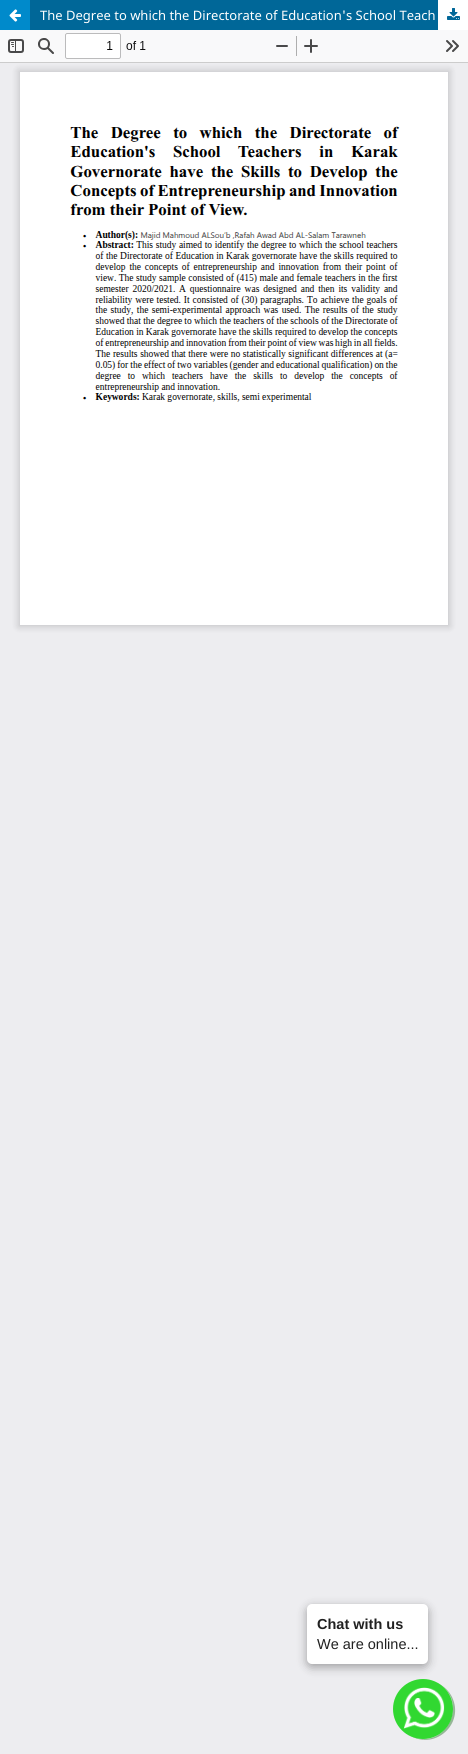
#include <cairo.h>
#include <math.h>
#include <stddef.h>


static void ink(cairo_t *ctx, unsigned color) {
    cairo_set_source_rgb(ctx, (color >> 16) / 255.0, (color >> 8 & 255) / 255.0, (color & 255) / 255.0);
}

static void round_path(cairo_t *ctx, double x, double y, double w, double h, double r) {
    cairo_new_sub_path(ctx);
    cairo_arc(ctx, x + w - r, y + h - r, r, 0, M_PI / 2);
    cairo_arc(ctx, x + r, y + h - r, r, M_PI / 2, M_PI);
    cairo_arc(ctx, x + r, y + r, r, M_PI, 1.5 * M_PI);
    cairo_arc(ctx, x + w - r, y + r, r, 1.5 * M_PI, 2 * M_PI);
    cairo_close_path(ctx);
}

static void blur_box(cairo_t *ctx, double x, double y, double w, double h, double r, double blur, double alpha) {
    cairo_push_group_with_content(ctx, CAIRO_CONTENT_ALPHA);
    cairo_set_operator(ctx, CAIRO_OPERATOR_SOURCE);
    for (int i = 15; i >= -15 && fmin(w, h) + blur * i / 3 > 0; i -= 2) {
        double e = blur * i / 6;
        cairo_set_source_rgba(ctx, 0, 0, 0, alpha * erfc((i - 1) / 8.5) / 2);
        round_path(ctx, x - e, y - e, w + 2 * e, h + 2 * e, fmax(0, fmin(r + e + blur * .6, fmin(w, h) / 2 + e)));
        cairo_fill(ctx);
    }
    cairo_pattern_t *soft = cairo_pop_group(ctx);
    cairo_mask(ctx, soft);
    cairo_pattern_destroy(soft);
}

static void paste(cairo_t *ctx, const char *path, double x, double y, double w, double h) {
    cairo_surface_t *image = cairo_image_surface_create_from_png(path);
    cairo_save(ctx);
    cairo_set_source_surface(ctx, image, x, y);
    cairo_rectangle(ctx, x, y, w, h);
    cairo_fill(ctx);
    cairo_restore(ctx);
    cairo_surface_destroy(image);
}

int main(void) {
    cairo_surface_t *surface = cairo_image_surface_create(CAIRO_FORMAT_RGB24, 468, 1754);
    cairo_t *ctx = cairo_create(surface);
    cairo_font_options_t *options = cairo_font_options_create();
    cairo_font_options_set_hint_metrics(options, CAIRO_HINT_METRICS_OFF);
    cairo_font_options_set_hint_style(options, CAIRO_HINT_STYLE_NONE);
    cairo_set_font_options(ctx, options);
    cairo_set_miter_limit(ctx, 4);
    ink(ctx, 0xFFFFFF);
    cairo_paint(ctx);
    ink(ctx, 0x006798);
    cairo_rectangle(ctx, 30, 0, 408, 30);
    cairo_fill(ctx);
    ink(ctx, 0x008ACB);
    cairo_rectangle(ctx, 0, 0, 30, 30);
    cairo_fill(ctx);
    paste(ctx, "media/1.png", 9, 9, 12, 13);
    cairo_select_font_face(ctx, "Noto Sans", CAIRO_FONT_SLANT_NORMAL, CAIRO_FONT_WEIGHT_NORMAL);
    cairo_set_font_size(ctx, 13);
    ink(ctx, 0xFFFFFF);
    cairo_move_to(ctx, 40, 20);
    cairo_show_text(ctx, "The Degree to which the Directorate of Education's School Teach");
    paste(ctx, "media/2.png", 447, 8, 13, 12);
    paste(ctx, "media/3.png", 0, 30, 468, 1724);
    ink(ctx, 0x000000);
    blur_box(ctx, 307, 1607, 121, 60, 5, 5, 0.34);
    ink(ctx, 0xFFFFFF);
    round_path(ctx, 307, 1604, 121, 60, 5);
    cairo_fill(ctx);
    cairo_select_font_face(ctx, "Liberation Sans", CAIRO_FONT_SLANT_NORMAL, CAIRO_FONT_WEIGHT_BOLD);
    cairo_set_font_size(ctx, 14.5);
    ink(ctx, 0x212121);
    cairo_move_to(ctx, 317, 1629);
    cairo_show_text(ctx, "Chat with us");
    cairo_select_font_face(ctx, "Liberation Sans", CAIRO_FONT_SLANT_NORMAL, CAIRO_FONT_WEIGHT_NORMAL);
    cairo_move_to(ctx, 317, 1649);
    cairo_show_text(ctx, "We are online...");
    ink(ctx, 0x96B797);
    cairo_new_path(ctx);
    cairo_move_to(ctx, 411, 1736);
    cairo_curve_to(ctx, 435, 1750, 465, 1724, 452, 1697);
    cairo_curve_to(ctx, 449, 1691, 444, 1686, 437, 1683);
    cairo_curve_to(ctx, 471, 1701, 445, 1752, 411, 1736);
    cairo_close_path(ctx);
    cairo_fill(ctx);
    ink(ctx, 0x31D831);
    cairo_arc(ctx, 423, 1709, 30, 0, 2 * M_PI);
    cairo_fill(ctx);
    paste(ctx, "media/4.png", 403, 1687, 42, 42);
    cairo_surface_write_to_png(surface, "image.png");
    cairo_font_options_destroy(options);
    cairo_destroy(ctx);
    cairo_surface_destroy(surface);
    return 0;
}
